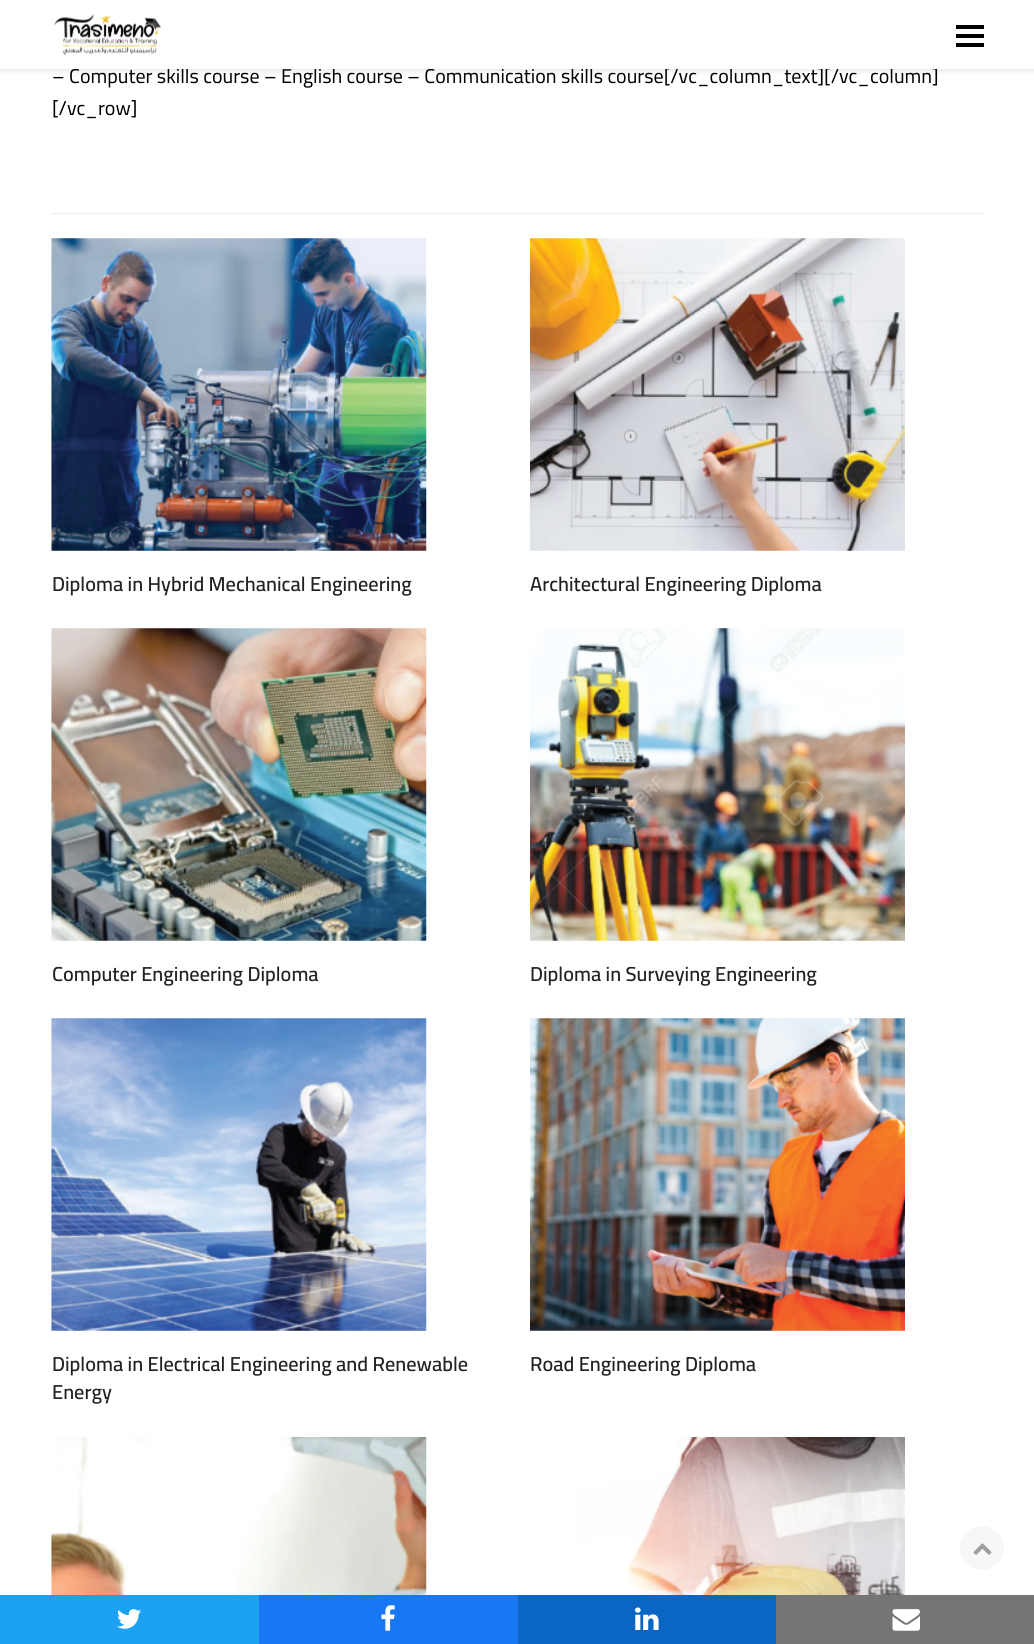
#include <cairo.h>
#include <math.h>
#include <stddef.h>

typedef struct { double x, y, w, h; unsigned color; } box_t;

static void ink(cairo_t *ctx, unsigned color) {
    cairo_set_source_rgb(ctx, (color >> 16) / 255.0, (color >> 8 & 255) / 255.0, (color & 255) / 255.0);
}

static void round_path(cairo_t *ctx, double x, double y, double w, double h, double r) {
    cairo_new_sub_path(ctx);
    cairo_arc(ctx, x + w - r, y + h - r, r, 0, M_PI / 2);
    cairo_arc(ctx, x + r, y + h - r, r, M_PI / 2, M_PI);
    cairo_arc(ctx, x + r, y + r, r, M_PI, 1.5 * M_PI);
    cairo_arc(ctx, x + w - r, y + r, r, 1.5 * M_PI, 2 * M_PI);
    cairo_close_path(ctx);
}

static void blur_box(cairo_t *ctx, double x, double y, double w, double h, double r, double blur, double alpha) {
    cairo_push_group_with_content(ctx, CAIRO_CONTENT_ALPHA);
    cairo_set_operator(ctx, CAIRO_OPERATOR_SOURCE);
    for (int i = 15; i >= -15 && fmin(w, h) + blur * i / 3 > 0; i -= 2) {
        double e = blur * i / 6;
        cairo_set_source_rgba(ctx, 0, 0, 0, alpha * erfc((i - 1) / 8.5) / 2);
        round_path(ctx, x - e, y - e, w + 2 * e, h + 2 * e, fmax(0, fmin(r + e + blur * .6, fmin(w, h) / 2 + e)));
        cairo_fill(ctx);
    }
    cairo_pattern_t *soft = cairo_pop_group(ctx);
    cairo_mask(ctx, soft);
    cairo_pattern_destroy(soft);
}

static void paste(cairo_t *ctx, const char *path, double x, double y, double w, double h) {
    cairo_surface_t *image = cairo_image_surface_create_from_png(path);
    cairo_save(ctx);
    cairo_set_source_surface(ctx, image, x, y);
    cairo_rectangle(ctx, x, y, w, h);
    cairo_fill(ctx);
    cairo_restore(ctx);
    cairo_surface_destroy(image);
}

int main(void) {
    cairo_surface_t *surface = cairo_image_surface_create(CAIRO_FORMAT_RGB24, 1034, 1644);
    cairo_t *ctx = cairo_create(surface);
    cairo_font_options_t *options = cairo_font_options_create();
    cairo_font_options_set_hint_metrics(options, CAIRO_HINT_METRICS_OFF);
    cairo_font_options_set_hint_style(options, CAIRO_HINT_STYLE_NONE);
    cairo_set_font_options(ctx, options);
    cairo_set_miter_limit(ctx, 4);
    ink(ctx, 0xFFFFFF);
    cairo_paint(ctx);
    ink(ctx, 0x000000);
    blur_box(ctx, 0, 3, 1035, 68, 0, 3, 0.1);
    cairo_select_font_face(ctx, "Cairo", CAIRO_FONT_SLANT_NORMAL, CAIRO_FONT_WEIGHT_NORMAL);
    cairo_set_font_size(ctx, 20);
    ink(ctx, 0x000000);
    cairo_move_to(ctx, 52, 83);
    cairo_show_text(ctx, "– Computer skills course – English course – Communication skills course[/vc_column_text][/vc_column]");
    ink(ctx, 0xFFFFFF);
    cairo_rectangle(ctx, 0, 0, 1034, 69);
    cairo_fill(ctx);
    paste(ctx, "media/1.png", 54, 14, 107, 42);
    {
        static const box_t items[] = {
            {956, 34, 28, 4, 0x000000},
            {956, 25, 28, 4, 0x000000},
            {956, 43, 28, 4, 0x000000},
        };
        for (size_t i = 0; i < sizeof items / sizeof *items; i++) {
            ink(ctx, items[i].color);
            cairo_rectangle(ctx, items[i].x, items[i].y, items[i].w, items[i].h);
            cairo_fill(ctx);
        }
    }
    cairo_move_to(ctx, 52, 115);
    cairo_show_text(ctx, "[/vc_row]");
    ink(ctx, 0xEEEEEE);
    cairo_rectangle(ctx, 51, 213, 933, 1);
    cairo_fill(ctx);
    paste(ctx, "media/2.png", 51, 238, 376, 313);
    cairo_select_font_face(ctx, "Cairo SemiBold", CAIRO_FONT_SLANT_NORMAL, CAIRO_FONT_WEIGHT_NORMAL);
    cairo_set_font_size(ctx, 20.2);
    ink(ctx, 0x222222);
    cairo_move_to(ctx, 52, 591);
    cairo_show_text(ctx, "Diploma in Hybrid Mechanical Engineering");
    paste(ctx, "media/3.png", 530, 238, 375, 313);
    cairo_move_to(ctx, 530, 591);
    cairo_show_text(ctx, "Architectural Engineering Diploma");
    paste(ctx, "media/4.png", 51, 628, 376, 313);
    cairo_move_to(ctx, 52, 981);
    cairo_show_text(ctx, "Computer Engineering Diploma");
    paste(ctx, "media/5.png", 530, 628, 375, 313);
    cairo_move_to(ctx, 530, 981);
    cairo_show_text(ctx, "Diploma in Surveying Engineering");
    paste(ctx, "media/6.png", 51, 1018, 376, 313);
    cairo_move_to(ctx, 52, 1371);
    cairo_show_text(ctx, "Diploma in Electrical Engineering and Renewable");
    cairo_move_to(ctx, 52, 1399);
    cairo_show_text(ctx, "Energy");
    paste(ctx, "media/7.png", 530, 1018, 375, 313);
    cairo_move_to(ctx, 530, 1371);
    cairo_show_text(ctx, "Road Engineering Diploma");
    paste(ctx, "media/8.png", 51, 1437, 376, 158);
    paste(ctx, "media/9.png", 576, 1437, 329, 158);
    ink(ctx, 0x1DA1F2);
    cairo_rectangle(ctx, 0, 1595, 259, 49);
    cairo_fill(ctx);
    paste(ctx, "media/10.png", 117, 1609, 24, 20);
    ink(ctx, 0x1877F2);
    cairo_rectangle(ctx, 259, 1595, 259, 49);
    cairo_fill(ctx);
    paste(ctx, "media/11.png", 381, 1605, 14, 26);
    ink(ctx, 0x0A66C2);
    cairo_rectangle(ctx, 518, 1595, 258, 49);
    cairo_fill(ctx);
    paste(ctx, "media/12.png", 635, 1607, 24, 23);
    ink(ctx, 0x757575);
    cairo_rectangle(ctx, 776, 1595, 258, 49);
    cairo_fill(ctx);
    paste(ctx, "media/13.png", 892, 1609, 28, 22);
    ink(ctx, 0xF7F7F7);
    cairo_arc(ctx, 982, 1548, 22, 0, 2 * M_PI);
    cairo_fill(ctx);
    paste(ctx, "media/14.png", 973, 1543, 19, 12);
    cairo_surface_write_to_png(surface, "image.png");
    cairo_font_options_destroy(options);
    cairo_destroy(ctx);
    cairo_surface_destroy(surface);
    return 0;
}
